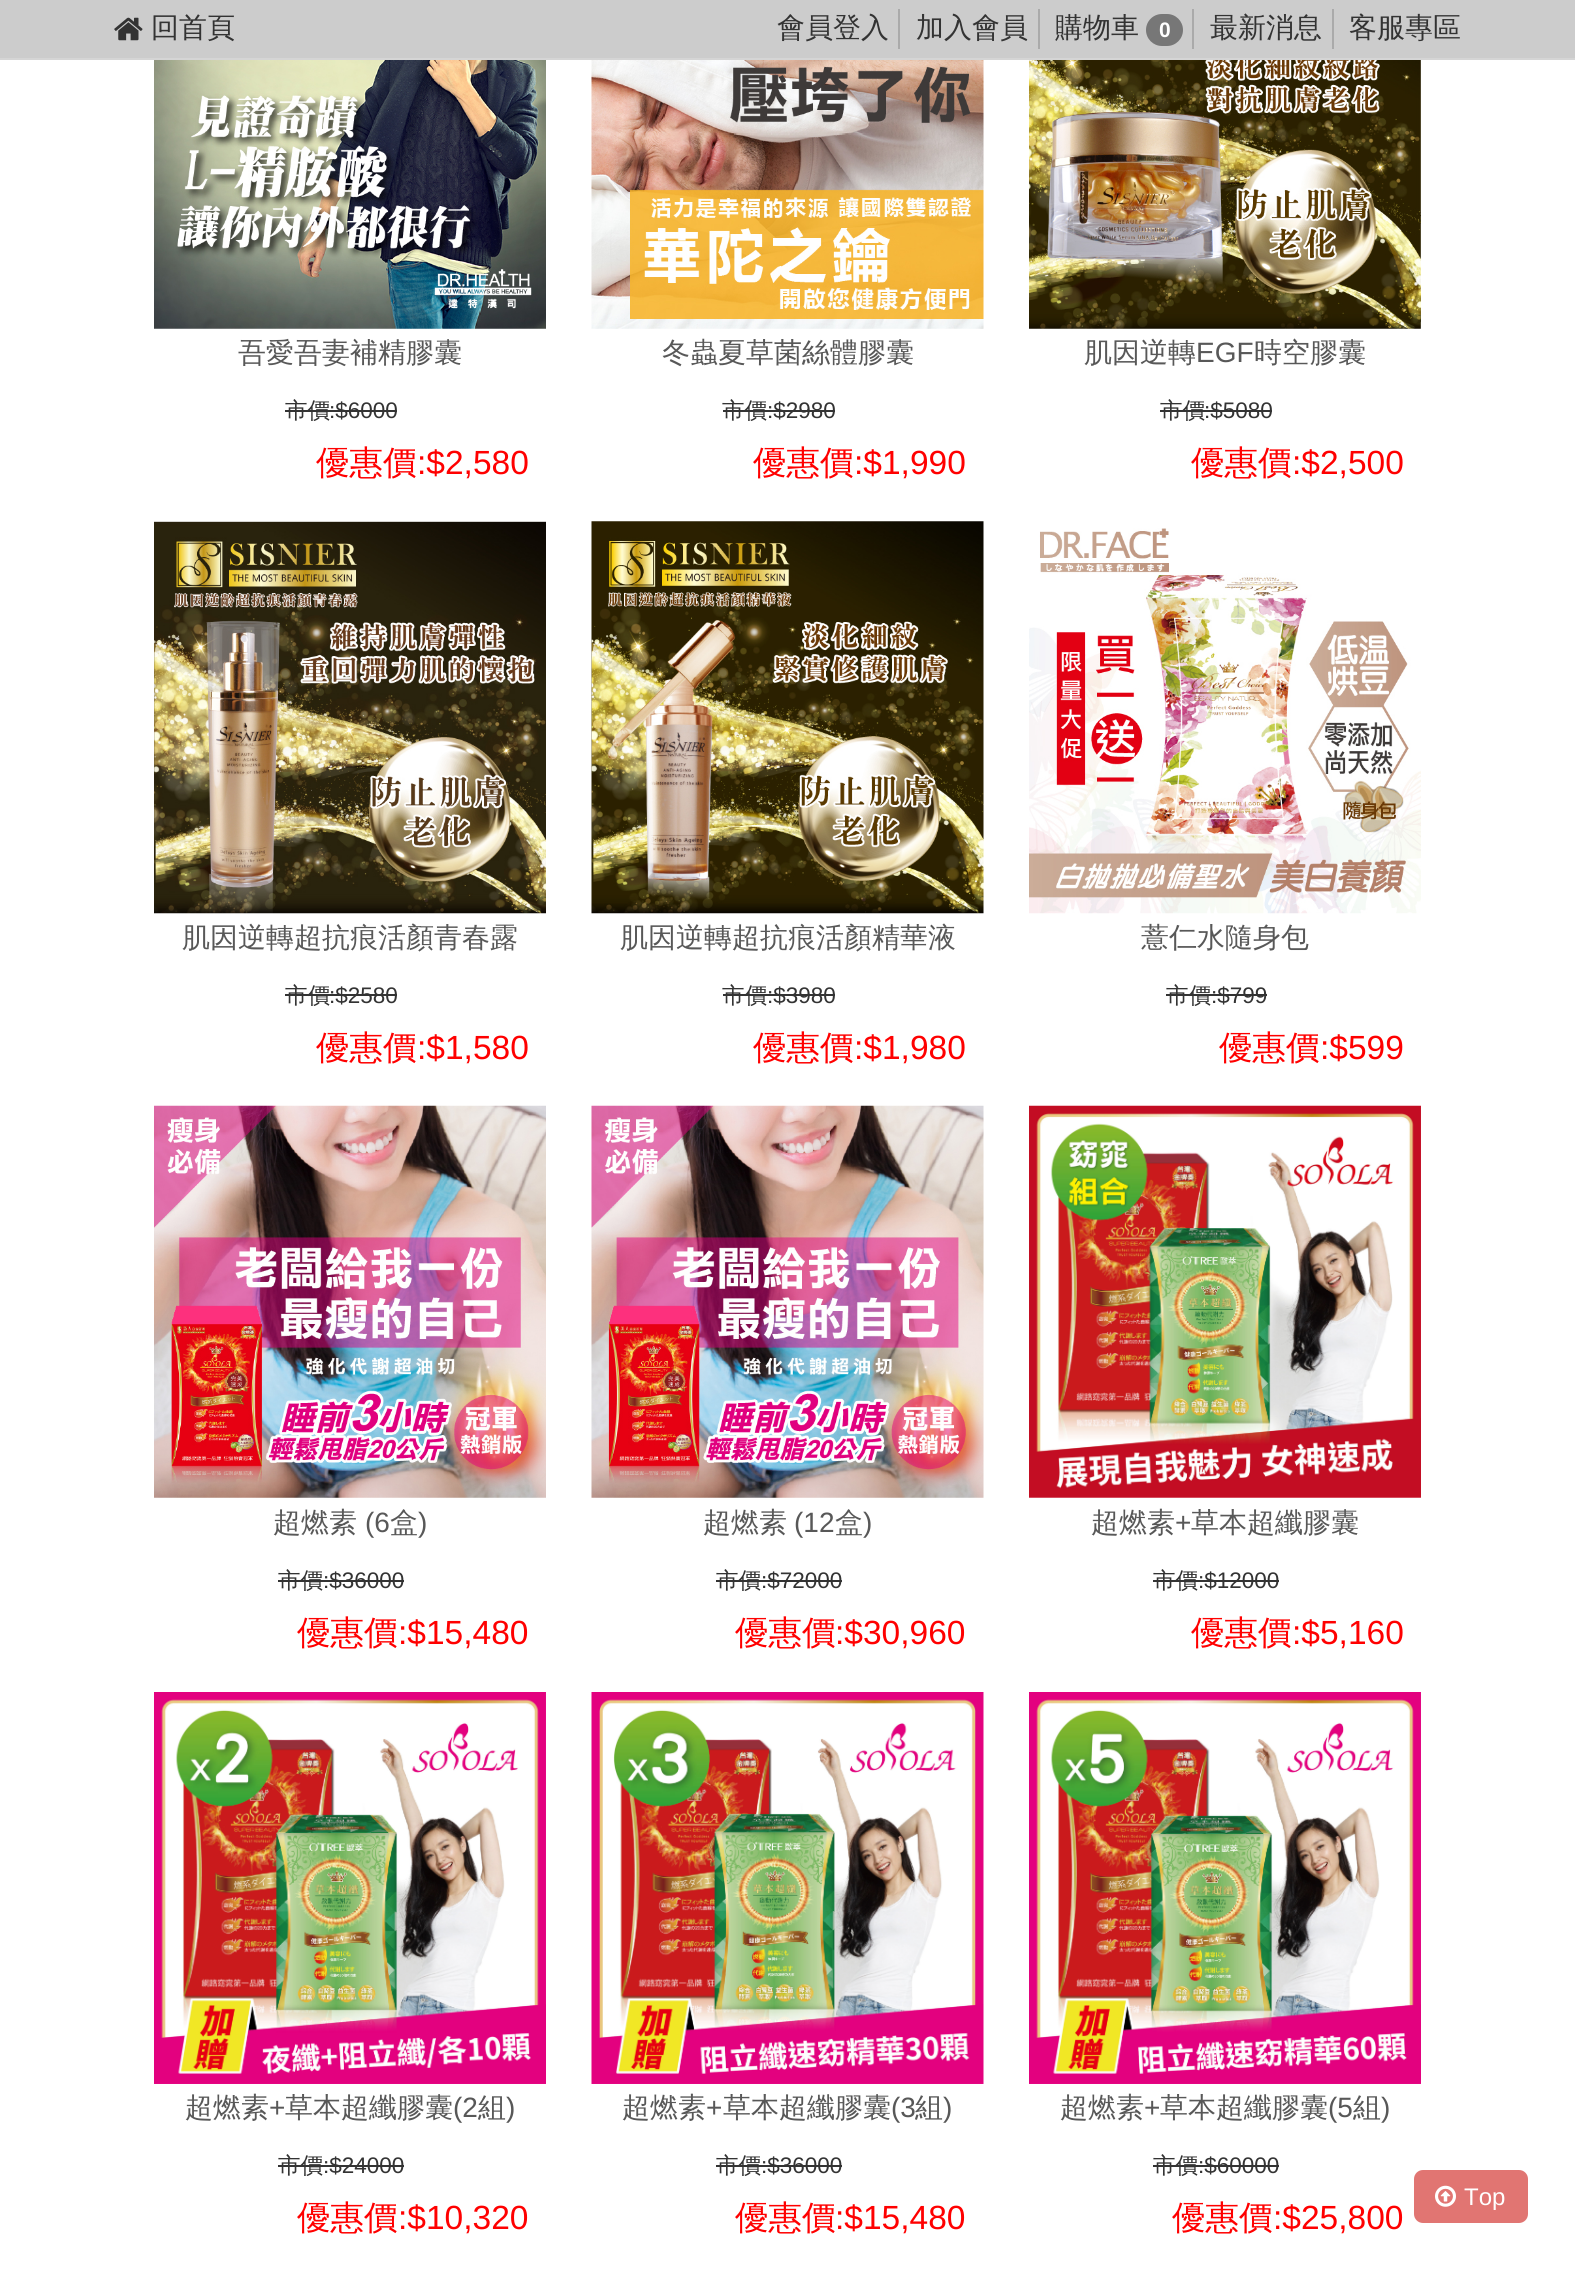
#include <cairo.h>
#include <math.h>
#include <stddef.h>


static void ink(cairo_t *ctx, unsigned color) {
    cairo_set_source_rgb(ctx, (color >> 16) / 255.0, (color >> 8 & 255) / 255.0, (color & 255) / 255.0);
}

static void round_path(cairo_t *ctx, double x, double y, double w, double h, double r) {
    cairo_new_sub_path(ctx);
    cairo_arc(ctx, x + w - r, y + h - r, r, 0, M_PI / 2);
    cairo_arc(ctx, x + r, y + h - r, r, M_PI / 2, M_PI);
    cairo_arc(ctx, x + r, y + r, r, M_PI, 1.5 * M_PI);
    cairo_arc(ctx, x + w - r, y + r, r, 1.5 * M_PI, 2 * M_PI);
    cairo_close_path(ctx);
}

static void paste(cairo_t *ctx, const char *path, double x, double y, double w, double h) {
    cairo_surface_t *image = cairo_image_surface_create_from_png(path);
    cairo_save(ctx);
    cairo_set_source_surface(ctx, image, x, y);
    cairo_rectangle(ctx, x, y, w, h);
    cairo_fill(ctx);
    cairo_restore(ctx);
    cairo_surface_destroy(image);
}

int main(void) {
    cairo_surface_t *surface = cairo_image_surface_create(CAIRO_FORMAT_RGB24, 1575, 2274);
    cairo_t *ctx = cairo_create(surface);
    cairo_font_options_t *options = cairo_font_options_create();
    cairo_font_options_set_hint_metrics(options, CAIRO_HINT_METRICS_OFF);
    cairo_font_options_set_hint_style(options, CAIRO_HINT_STYLE_NONE);
    cairo_set_font_options(ctx, options);
    cairo_set_miter_limit(ctx, 4);
    ink(ctx, 0xFFFFFF);
    cairo_paint(ctx);
    ink(ctx, 0xCCCCCC);
    cairo_rectangle(ctx, 0, 0, 1575, 58);
    cairo_fill(ctx);
    ink(ctx, 0xD5D5D5);
    cairo_rectangle(ctx, 0, 58, 1575, 2);
    cairo_fill(ctx);
    paste(ctx, "media/1.png", 114, 17, 29, 24);
    cairo_select_font_face(ctx, "WenQuanYi Zen Hei Medium", CAIRO_FONT_SLANT_NORMAL, CAIRO_FONT_WEIGHT_NORMAL);
    cairo_set_font_size(ctx, 28);
    ink(ctx, 0x333333);
    cairo_move_to(ctx, 151, 37);
    cairo_show_text(ctx, "回首頁");
    ink(ctx, 0xAAAAAA);
    cairo_rectangle(ctx, 898, 9, 2, 40);
    cairo_fill(ctx);
    ink(ctx, 0x333333);
    cairo_move_to(ctx, 777, 37);
    cairo_show_text(ctx, "會員登入");
    ink(ctx, 0xAAAAAA);
    cairo_rectangle(ctx, 1038, 9, 2, 40);
    cairo_fill(ctx);
    ink(ctx, 0x333333);
    cairo_move_to(ctx, 916, 37);
    cairo_show_text(ctx, "加入會員");
    ink(ctx, 0xAAAAAA);
    cairo_rectangle(ctx, 1192, 9, 2, 40);
    cairo_fill(ctx);
    ink(ctx, 0x333333);
    cairo_move_to(ctx, 1055, 37);
    cairo_show_text(ctx, "購物車");
    ink(ctx, 0x777777);
    round_path(ctx, 1146, 14, 37, 32, 16);
    cairo_fill(ctx);
    cairo_select_font_face(ctx, "Liberation Sans", CAIRO_FONT_SLANT_NORMAL, CAIRO_FONT_WEIGHT_BOLD);
    cairo_set_font_size(ctx, 21);
    ink(ctx, 0xFFFFFF);
    cairo_move_to(ctx, 1159, 37);
    cairo_show_text(ctx, "0");
    ink(ctx, 0xAAAAAA);
    cairo_rectangle(ctx, 1332, 9, 2, 40);
    cairo_fill(ctx);
    cairo_select_font_face(ctx, "WenQuanYi Zen Hei Medium", CAIRO_FONT_SLANT_NORMAL, CAIRO_FONT_WEIGHT_NORMAL);
    cairo_set_font_size(ctx, 28);
    ink(ctx, 0x333333);
    cairo_move_to(ctx, 1210, 37);
    cairo_show_text(ctx, "最新消息");
    cairo_move_to(ctx, 1349, 37);
    cairo_show_text(ctx, "客服專區");
    paste(ctx, "media/2.png", 154, 60, 392, 269);
    ink(ctx, 0x585858);
    cairo_move_to(ctx, 238, 362);
    cairo_show_text(ctx, "吾愛吾妻補精膠囊");
    cairo_set_font_size(ctx, 22.5);
    ink(ctx, 0x333333);
    cairo_move_to(ctx, 285, 418);
    cairo_show_text(ctx, "市價");
    cairo_rectangle(ctx, 285, 410, 112, 2);
    cairo_fill(ctx);
    cairo_select_font_face(ctx, "Liberation Sans", CAIRO_FONT_SLANT_NORMAL, CAIRO_FONT_WEIGHT_NORMAL);
    cairo_move_to(ctx, 329, 418);
    cairo_show_text(ctx, ":$6000");
    cairo_select_font_face(ctx, "WenQuanYi Zen Hei Medium", CAIRO_FONT_SLANT_NORMAL, CAIRO_FONT_WEIGHT_NORMAL);
    cairo_set_font_size(ctx, 33.5);
    ink(ctx, 0xFF0000);
    cairo_move_to(ctx, 316, 474);
    cairo_show_text(ctx, "優惠價");
    cairo_select_font_face(ctx, "Liberation Sans", CAIRO_FONT_SLANT_NORMAL, CAIRO_FONT_WEIGHT_NORMAL);
    cairo_move_to(ctx, 417, 474);
    cairo_show_text(ctx, ":$2,580");
    paste(ctx, "media/3.png", 591, 60, 393, 269);
    cairo_select_font_face(ctx, "WenQuanYi Zen Hei Medium", CAIRO_FONT_SLANT_NORMAL, CAIRO_FONT_WEIGHT_NORMAL);
    cairo_set_font_size(ctx, 28);
    ink(ctx, 0x585858);
    cairo_move_to(ctx, 662, 362);
    cairo_show_text(ctx, "冬蟲夏草菌絲體膠囊");
    cairo_set_font_size(ctx, 22.5);
    ink(ctx, 0x333333);
    cairo_move_to(ctx, 722, 418);
    cairo_show_text(ctx, "市價");
    cairo_rectangle(ctx, 723, 410, 112, 2);
    cairo_fill(ctx);
    cairo_select_font_face(ctx, "Liberation Sans", CAIRO_FONT_SLANT_NORMAL, CAIRO_FONT_WEIGHT_NORMAL);
    cairo_move_to(ctx, 767, 418);
    cairo_show_text(ctx, ":$2980");
    cairo_select_font_face(ctx, "WenQuanYi Zen Hei Medium", CAIRO_FONT_SLANT_NORMAL, CAIRO_FONT_WEIGHT_NORMAL);
    cairo_set_font_size(ctx, 33.5);
    ink(ctx, 0xFF0000);
    cairo_move_to(ctx, 753, 474);
    cairo_show_text(ctx, "優惠價");
    cairo_select_font_face(ctx, "Liberation Sans", CAIRO_FONT_SLANT_NORMAL, CAIRO_FONT_WEIGHT_NORMAL);
    cairo_move_to(ctx, 854, 474);
    cairo_show_text(ctx, ":$1,990");
    paste(ctx, "media/4.png", 1029, 60, 392, 269);
    cairo_select_font_face(ctx, "WenQuanYi Zen Hei Medium", CAIRO_FONT_SLANT_NORMAL, CAIRO_FONT_WEIGHT_NORMAL);
    cairo_set_font_size(ctx, 28);
    ink(ctx, 0x585858);
    cairo_move_to(ctx, 1084, 362);
    cairo_show_text(ctx, "肌因逆轉");
    cairo_select_font_face(ctx, "Liberation Sans", CAIRO_FONT_SLANT_NORMAL, CAIRO_FONT_WEIGHT_NORMAL);
    cairo_move_to(ctx, 1196, 362);
    cairo_show_text(ctx, "EGF");
    cairo_select_font_face(ctx, "WenQuanYi Zen Hei Medium", CAIRO_FONT_SLANT_NORMAL, CAIRO_FONT_WEIGHT_NORMAL);
    cairo_move_to(ctx, 1254, 362);
    cairo_show_text(ctx, "時空膠囊");
    cairo_set_font_size(ctx, 22.5);
    ink(ctx, 0x333333);
    cairo_move_to(ctx, 1160, 418);
    cairo_show_text(ctx, "市價");
    cairo_rectangle(ctx, 1160, 410, 112, 2);
    cairo_fill(ctx);
    cairo_select_font_face(ctx, "Liberation Sans", CAIRO_FONT_SLANT_NORMAL, CAIRO_FONT_WEIGHT_NORMAL);
    cairo_move_to(ctx, 1204, 418);
    cairo_show_text(ctx, ":$5080");
    cairo_select_font_face(ctx, "WenQuanYi Zen Hei Medium", CAIRO_FONT_SLANT_NORMAL, CAIRO_FONT_WEIGHT_NORMAL);
    cairo_set_font_size(ctx, 33.5);
    ink(ctx, 0xFF0000);
    cairo_move_to(ctx, 1191, 474);
    cairo_show_text(ctx, "優惠價");
    cairo_select_font_face(ctx, "Liberation Sans", CAIRO_FONT_SLANT_NORMAL, CAIRO_FONT_WEIGHT_NORMAL);
    cairo_move_to(ctx, 1292, 474);
    cairo_show_text(ctx, ":$2,500");
    paste(ctx, "media/5.png", 154, 521, 392, 393);
    cairo_select_font_face(ctx, "WenQuanYi Zen Hei Medium", CAIRO_FONT_SLANT_NORMAL, CAIRO_FONT_WEIGHT_NORMAL);
    cairo_set_font_size(ctx, 28);
    ink(ctx, 0x585858);
    cairo_move_to(ctx, 182, 947);
    cairo_show_text(ctx, "肌因逆轉超抗痕活顏青春露");
    cairo_set_font_size(ctx, 22.5);
    ink(ctx, 0x333333);
    cairo_move_to(ctx, 285, 1003);
    cairo_show_text(ctx, "市價");
    cairo_rectangle(ctx, 285, 994, 112, 2);
    cairo_fill(ctx);
    cairo_select_font_face(ctx, "Liberation Sans", CAIRO_FONT_SLANT_NORMAL, CAIRO_FONT_WEIGHT_NORMAL);
    cairo_move_to(ctx, 329, 1003);
    cairo_show_text(ctx, ":$2580");
    cairo_select_font_face(ctx, "WenQuanYi Zen Hei Medium", CAIRO_FONT_SLANT_NORMAL, CAIRO_FONT_WEIGHT_NORMAL);
    cairo_set_font_size(ctx, 33.5);
    ink(ctx, 0xFF0000);
    cairo_move_to(ctx, 316, 1059);
    cairo_show_text(ctx, "優惠價");
    cairo_select_font_face(ctx, "Liberation Sans", CAIRO_FONT_SLANT_NORMAL, CAIRO_FONT_WEIGHT_NORMAL);
    cairo_move_to(ctx, 417, 1059);
    cairo_show_text(ctx, ":$1,580");
    paste(ctx, "media/6.png", 591, 521, 393, 393);
    cairo_select_font_face(ctx, "WenQuanYi Zen Hei Medium", CAIRO_FONT_SLANT_NORMAL, CAIRO_FONT_WEIGHT_NORMAL);
    cairo_set_font_size(ctx, 28);
    ink(ctx, 0x585858);
    cairo_move_to(ctx, 620, 947);
    cairo_show_text(ctx, "肌因逆轉超抗痕活顏精華液");
    cairo_set_font_size(ctx, 22.5);
    ink(ctx, 0x333333);
    cairo_move_to(ctx, 722, 1003);
    cairo_show_text(ctx, "市價");
    cairo_rectangle(ctx, 723, 994, 112, 2);
    cairo_fill(ctx);
    cairo_select_font_face(ctx, "Liberation Sans", CAIRO_FONT_SLANT_NORMAL, CAIRO_FONT_WEIGHT_NORMAL);
    cairo_move_to(ctx, 767, 1003);
    cairo_show_text(ctx, ":$3980");
    cairo_select_font_face(ctx, "WenQuanYi Zen Hei Medium", CAIRO_FONT_SLANT_NORMAL, CAIRO_FONT_WEIGHT_NORMAL);
    cairo_set_font_size(ctx, 33.5);
    ink(ctx, 0xFF0000);
    cairo_move_to(ctx, 753, 1059);
    cairo_show_text(ctx, "優惠價");
    cairo_select_font_face(ctx, "Liberation Sans", CAIRO_FONT_SLANT_NORMAL, CAIRO_FONT_WEIGHT_NORMAL);
    cairo_move_to(ctx, 854, 1059);
    cairo_show_text(ctx, ":$1,980");
    paste(ctx, "media/7.png", 1029, 528, 392, 386);
    cairo_select_font_face(ctx, "WenQuanYi Zen Hei Medium", CAIRO_FONT_SLANT_NORMAL, CAIRO_FONT_WEIGHT_NORMAL);
    cairo_set_font_size(ctx, 28);
    ink(ctx, 0x585858);
    cairo_move_to(ctx, 1141, 947);
    cairo_show_text(ctx, "薏仁水隨身包");
    cairo_set_font_size(ctx, 22.5);
    ink(ctx, 0x333333);
    cairo_move_to(ctx, 1166, 1003);
    cairo_show_text(ctx, "市價");
    cairo_rectangle(ctx, 1166, 994, 101, 2);
    cairo_fill(ctx);
    cairo_select_font_face(ctx, "Liberation Sans", CAIRO_FONT_SLANT_NORMAL, CAIRO_FONT_WEIGHT_NORMAL);
    cairo_move_to(ctx, 1211, 1003);
    cairo_show_text(ctx, ":$799");
    cairo_select_font_face(ctx, "WenQuanYi Zen Hei Medium", CAIRO_FONT_SLANT_NORMAL, CAIRO_FONT_WEIGHT_NORMAL);
    cairo_set_font_size(ctx, 33.5);
    ink(ctx, 0xFF0000);
    cairo_move_to(ctx, 1219, 1059);
    cairo_show_text(ctx, "優惠價");
    cairo_select_font_face(ctx, "Liberation Sans", CAIRO_FONT_SLANT_NORMAL, CAIRO_FONT_WEIGHT_NORMAL);
    cairo_move_to(ctx, 1320, 1059);
    cairo_show_text(ctx, ":$599");
    paste(ctx, "media/8.png", 154, 1105, 392, 393);
    cairo_select_font_face(ctx, "WenQuanYi Zen Hei Medium", CAIRO_FONT_SLANT_NORMAL, CAIRO_FONT_WEIGHT_NORMAL);
    cairo_set_font_size(ctx, 28);
    ink(ctx, 0x585858);
    cairo_move_to(ctx, 273, 1532);
    cairo_show_text(ctx, "超燃素");
    cairo_select_font_face(ctx, "Liberation Sans", CAIRO_FONT_SLANT_NORMAL, CAIRO_FONT_WEIGHT_NORMAL);
    cairo_move_to(ctx, 365, 1532);
    cairo_show_text(ctx, "(6");
    cairo_select_font_face(ctx, "WenQuanYi Zen Hei Medium", CAIRO_FONT_SLANT_NORMAL, CAIRO_FONT_WEIGHT_NORMAL);
    cairo_move_to(ctx, 390, 1532);
    cairo_show_text(ctx, "盒");
    cairo_select_font_face(ctx, "Liberation Sans", CAIRO_FONT_SLANT_NORMAL, CAIRO_FONT_WEIGHT_NORMAL);
    cairo_move_to(ctx, 418, 1532);
    cairo_show_text(ctx, ")");
    cairo_select_font_face(ctx, "WenQuanYi Zen Hei Medium", CAIRO_FONT_SLANT_NORMAL, CAIRO_FONT_WEIGHT_NORMAL);
    cairo_set_font_size(ctx, 22.5);
    ink(ctx, 0x333333);
    cairo_move_to(ctx, 278, 1588);
    cairo_show_text(ctx, "市價");
    cairo_rectangle(ctx, 278, 1580, 126, 2);
    cairo_fill(ctx);
    cairo_select_font_face(ctx, "Liberation Sans", CAIRO_FONT_SLANT_NORMAL, CAIRO_FONT_WEIGHT_NORMAL);
    cairo_move_to(ctx, 323, 1588);
    cairo_show_text(ctx, ":$36000");
    cairo_select_font_face(ctx, "WenQuanYi Zen Hei Medium", CAIRO_FONT_SLANT_NORMAL, CAIRO_FONT_WEIGHT_NORMAL);
    cairo_set_font_size(ctx, 33.5);
    ink(ctx, 0xFF0000);
    cairo_move_to(ctx, 297, 1644);
    cairo_show_text(ctx, "優惠價");
    cairo_select_font_face(ctx, "Liberation Sans", CAIRO_FONT_SLANT_NORMAL, CAIRO_FONT_WEIGHT_NORMAL);
    cairo_move_to(ctx, 398, 1644);
    cairo_show_text(ctx, ":$15,480");
    paste(ctx, "media/9.png", 591, 1105, 393, 393);
    cairo_select_font_face(ctx, "WenQuanYi Zen Hei Medium", CAIRO_FONT_SLANT_NORMAL, CAIRO_FONT_WEIGHT_NORMAL);
    cairo_set_font_size(ctx, 28);
    ink(ctx, 0x585858);
    cairo_move_to(ctx, 703, 1532);
    cairo_show_text(ctx, "超燃素");
    cairo_select_font_face(ctx, "Liberation Sans", CAIRO_FONT_SLANT_NORMAL, CAIRO_FONT_WEIGHT_NORMAL);
    cairo_move_to(ctx, 794, 1532);
    cairo_show_text(ctx, "(12");
    cairo_select_font_face(ctx, "WenQuanYi Zen Hei Medium", CAIRO_FONT_SLANT_NORMAL, CAIRO_FONT_WEIGHT_NORMAL);
    cairo_move_to(ctx, 835, 1532);
    cairo_show_text(ctx, "盒");
    cairo_select_font_face(ctx, "Liberation Sans", CAIRO_FONT_SLANT_NORMAL, CAIRO_FONT_WEIGHT_NORMAL);
    cairo_move_to(ctx, 863, 1532);
    cairo_show_text(ctx, ")");
    cairo_select_font_face(ctx, "WenQuanYi Zen Hei Medium", CAIRO_FONT_SLANT_NORMAL, CAIRO_FONT_WEIGHT_NORMAL);
    cairo_set_font_size(ctx, 22.5);
    ink(ctx, 0x333333);
    cairo_move_to(ctx, 716, 1588);
    cairo_show_text(ctx, "市價");
    cairo_rectangle(ctx, 716, 1580, 126, 2);
    cairo_fill(ctx);
    cairo_select_font_face(ctx, "Liberation Sans", CAIRO_FONT_SLANT_NORMAL, CAIRO_FONT_WEIGHT_NORMAL);
    cairo_move_to(ctx, 761, 1588);
    cairo_show_text(ctx, ":$72000");
    cairo_select_font_face(ctx, "WenQuanYi Zen Hei Medium", CAIRO_FONT_SLANT_NORMAL, CAIRO_FONT_WEIGHT_NORMAL);
    cairo_set_font_size(ctx, 33.5);
    ink(ctx, 0xFF0000);
    cairo_move_to(ctx, 735, 1644);
    cairo_show_text(ctx, "優惠價");
    cairo_select_font_face(ctx, "Liberation Sans", CAIRO_FONT_SLANT_NORMAL, CAIRO_FONT_WEIGHT_NORMAL);
    cairo_move_to(ctx, 835, 1644);
    cairo_show_text(ctx, ":$30,960");
    paste(ctx, "media/10.png", 1029, 1105, 392, 393);
    cairo_select_font_face(ctx, "WenQuanYi Zen Hei Medium", CAIRO_FONT_SLANT_NORMAL, CAIRO_FONT_WEIGHT_NORMAL);
    cairo_set_font_size(ctx, 28);
    ink(ctx, 0x585858);
    cairo_move_to(ctx, 1091, 1532);
    cairo_show_text(ctx, "超燃素");
    cairo_select_font_face(ctx, "Liberation Sans", CAIRO_FONT_SLANT_NORMAL, CAIRO_FONT_WEIGHT_NORMAL);
    cairo_move_to(ctx, 1175, 1532);
    cairo_show_text(ctx, "+");
    cairo_select_font_face(ctx, "WenQuanYi Zen Hei Medium", CAIRO_FONT_SLANT_NORMAL, CAIRO_FONT_WEIGHT_NORMAL);
    cairo_move_to(ctx, 1191, 1532);
    cairo_show_text(ctx, "草本超纖膠囊");
    cairo_set_font_size(ctx, 22.5);
    ink(ctx, 0x333333);
    cairo_move_to(ctx, 1153, 1588);
    cairo_show_text(ctx, "市價");
    cairo_rectangle(ctx, 1153, 1580, 126, 2);
    cairo_fill(ctx);
    cairo_select_font_face(ctx, "Liberation Sans", CAIRO_FONT_SLANT_NORMAL, CAIRO_FONT_WEIGHT_NORMAL);
    cairo_move_to(ctx, 1198, 1588);
    cairo_show_text(ctx, ":$12000");
    cairo_select_font_face(ctx, "WenQuanYi Zen Hei Medium", CAIRO_FONT_SLANT_NORMAL, CAIRO_FONT_WEIGHT_NORMAL);
    cairo_set_font_size(ctx, 33.5);
    ink(ctx, 0xFF0000);
    cairo_move_to(ctx, 1191, 1644);
    cairo_show_text(ctx, "優惠價");
    cairo_select_font_face(ctx, "Liberation Sans", CAIRO_FONT_SLANT_NORMAL, CAIRO_FONT_WEIGHT_NORMAL);
    cairo_move_to(ctx, 1292, 1644);
    cairo_show_text(ctx, ":$5,160");
    paste(ctx, "media/11.png", 154, 1692, 392, 392);
    cairo_select_font_face(ctx, "WenQuanYi Zen Hei Medium", CAIRO_FONT_SLANT_NORMAL, CAIRO_FONT_WEIGHT_NORMAL);
    cairo_set_font_size(ctx, 28);
    ink(ctx, 0x585858);
    cairo_move_to(ctx, 185, 2117);
    cairo_show_text(ctx, "超燃素");
    cairo_select_font_face(ctx, "Liberation Sans", CAIRO_FONT_SLANT_NORMAL, CAIRO_FONT_WEIGHT_NORMAL);
    cairo_move_to(ctx, 269, 2117);
    cairo_show_text(ctx, "+");
    cairo_select_font_face(ctx, "WenQuanYi Zen Hei Medium", CAIRO_FONT_SLANT_NORMAL, CAIRO_FONT_WEIGHT_NORMAL);
    cairo_move_to(ctx, 285, 2117);
    cairo_show_text(ctx, "草本超纖膠囊");
    cairo_select_font_face(ctx, "Liberation Sans", CAIRO_FONT_SLANT_NORMAL, CAIRO_FONT_WEIGHT_NORMAL);
    cairo_move_to(ctx, 453, 2117);
    cairo_show_text(ctx, "(2");
    cairo_select_font_face(ctx, "WenQuanYi Zen Hei Medium", CAIRO_FONT_SLANT_NORMAL, CAIRO_FONT_WEIGHT_NORMAL);
    cairo_move_to(ctx, 478, 2117);
    cairo_show_text(ctx, "組");
    cairo_select_font_face(ctx, "Liberation Sans", CAIRO_FONT_SLANT_NORMAL, CAIRO_FONT_WEIGHT_NORMAL);
    cairo_move_to(ctx, 506, 2117);
    cairo_show_text(ctx, ")");
    cairo_select_font_face(ctx, "WenQuanYi Zen Hei Medium", CAIRO_FONT_SLANT_NORMAL, CAIRO_FONT_WEIGHT_NORMAL);
    cairo_set_font_size(ctx, 22.5);
    ink(ctx, 0x333333);
    cairo_move_to(ctx, 278, 2173);
    cairo_show_text(ctx, "市價");
    cairo_rectangle(ctx, 278, 2165, 126, 2);
    cairo_fill(ctx);
    cairo_select_font_face(ctx, "Liberation Sans", CAIRO_FONT_SLANT_NORMAL, CAIRO_FONT_WEIGHT_NORMAL);
    cairo_move_to(ctx, 323, 2173);
    cairo_show_text(ctx, ":$24000");
    cairo_select_font_face(ctx, "WenQuanYi Zen Hei Medium", CAIRO_FONT_SLANT_NORMAL, CAIRO_FONT_WEIGHT_NORMAL);
    cairo_set_font_size(ctx, 33.5);
    ink(ctx, 0xFF0000);
    cairo_move_to(ctx, 297, 2229);
    cairo_show_text(ctx, "優惠價");
    cairo_select_font_face(ctx, "Liberation Sans", CAIRO_FONT_SLANT_NORMAL, CAIRO_FONT_WEIGHT_NORMAL);
    cairo_move_to(ctx, 398, 2229);
    cairo_show_text(ctx, ":$10,320");
    paste(ctx, "media/12.png", 591, 1692, 393, 392);
    cairo_select_font_face(ctx, "WenQuanYi Zen Hei Medium", CAIRO_FONT_SLANT_NORMAL, CAIRO_FONT_WEIGHT_NORMAL);
    cairo_set_font_size(ctx, 28);
    ink(ctx, 0x585858);
    cairo_move_to(ctx, 622, 2117);
    cairo_show_text(ctx, "超燃素");
    cairo_select_font_face(ctx, "Liberation Sans", CAIRO_FONT_SLANT_NORMAL, CAIRO_FONT_WEIGHT_NORMAL);
    cairo_move_to(ctx, 706, 2117);
    cairo_show_text(ctx, "+");
    cairo_select_font_face(ctx, "WenQuanYi Zen Hei Medium", CAIRO_FONT_SLANT_NORMAL, CAIRO_FONT_WEIGHT_NORMAL);
    cairo_move_to(ctx, 723, 2117);
    cairo_show_text(ctx, "草本超纖膠囊");
    cairo_select_font_face(ctx, "Liberation Sans", CAIRO_FONT_SLANT_NORMAL, CAIRO_FONT_WEIGHT_NORMAL);
    cairo_move_to(ctx, 891, 2117);
    cairo_show_text(ctx, "(3");
    cairo_select_font_face(ctx, "WenQuanYi Zen Hei Medium", CAIRO_FONT_SLANT_NORMAL, CAIRO_FONT_WEIGHT_NORMAL);
    cairo_move_to(ctx, 915, 2117);
    cairo_show_text(ctx, "組");
    cairo_select_font_face(ctx, "Liberation Sans", CAIRO_FONT_SLANT_NORMAL, CAIRO_FONT_WEIGHT_NORMAL);
    cairo_move_to(ctx, 943, 2117);
    cairo_show_text(ctx, ")");
    cairo_select_font_face(ctx, "WenQuanYi Zen Hei Medium", CAIRO_FONT_SLANT_NORMAL, CAIRO_FONT_WEIGHT_NORMAL);
    cairo_set_font_size(ctx, 22.5);
    ink(ctx, 0x333333);
    cairo_move_to(ctx, 716, 2173);
    cairo_show_text(ctx, "市價");
    cairo_rectangle(ctx, 716, 2165, 126, 2);
    cairo_fill(ctx);
    cairo_select_font_face(ctx, "Liberation Sans", CAIRO_FONT_SLANT_NORMAL, CAIRO_FONT_WEIGHT_NORMAL);
    cairo_move_to(ctx, 761, 2173);
    cairo_show_text(ctx, ":$36000");
    cairo_select_font_face(ctx, "WenQuanYi Zen Hei Medium", CAIRO_FONT_SLANT_NORMAL, CAIRO_FONT_WEIGHT_NORMAL);
    cairo_set_font_size(ctx, 33.5);
    ink(ctx, 0xFF0000);
    cairo_move_to(ctx, 735, 2229);
    cairo_show_text(ctx, "優惠價");
    cairo_select_font_face(ctx, "Liberation Sans", CAIRO_FONT_SLANT_NORMAL, CAIRO_FONT_WEIGHT_NORMAL);
    cairo_move_to(ctx, 835, 2229);
    cairo_show_text(ctx, ":$15,480");
    paste(ctx, "media/13.png", 1029, 1692, 392, 392);
    cairo_select_font_face(ctx, "WenQuanYi Zen Hei Medium", CAIRO_FONT_SLANT_NORMAL, CAIRO_FONT_WEIGHT_NORMAL);
    cairo_set_font_size(ctx, 28);
    ink(ctx, 0x585858);
    cairo_move_to(ctx, 1060, 2117);
    cairo_show_text(ctx, "超燃素");
    cairo_select_font_face(ctx, "Liberation Sans", CAIRO_FONT_SLANT_NORMAL, CAIRO_FONT_WEIGHT_NORMAL);
    cairo_move_to(ctx, 1144, 2117);
    cairo_show_text(ctx, "+");
    cairo_select_font_face(ctx, "WenQuanYi Zen Hei Medium", CAIRO_FONT_SLANT_NORMAL, CAIRO_FONT_WEIGHT_NORMAL);
    cairo_move_to(ctx, 1160, 2117);
    cairo_show_text(ctx, "草本超纖膠囊");
    cairo_select_font_face(ctx, "Liberation Sans", CAIRO_FONT_SLANT_NORMAL, CAIRO_FONT_WEIGHT_NORMAL);
    cairo_move_to(ctx, 1328, 2117);
    cairo_show_text(ctx, "(5");
    cairo_select_font_face(ctx, "WenQuanYi Zen Hei Medium", CAIRO_FONT_SLANT_NORMAL, CAIRO_FONT_WEIGHT_NORMAL);
    cairo_move_to(ctx, 1353, 2117);
    cairo_show_text(ctx, "組");
    cairo_select_font_face(ctx, "Liberation Sans", CAIRO_FONT_SLANT_NORMAL, CAIRO_FONT_WEIGHT_NORMAL);
    cairo_move_to(ctx, 1381, 2117);
    cairo_show_text(ctx, ")");
    cairo_select_font_face(ctx, "WenQuanYi Zen Hei Medium", CAIRO_FONT_SLANT_NORMAL, CAIRO_FONT_WEIGHT_NORMAL);
    cairo_set_font_size(ctx, 22.5);
    ink(ctx, 0x333333);
    cairo_move_to(ctx, 1153, 2173);
    cairo_show_text(ctx, "市價");
    cairo_rectangle(ctx, 1153, 2165, 126, 2);
    cairo_fill(ctx);
    cairo_select_font_face(ctx, "Liberation Sans", CAIRO_FONT_SLANT_NORMAL, CAIRO_FONT_WEIGHT_NORMAL);
    cairo_move_to(ctx, 1198, 2173);
    cairo_show_text(ctx, ":$60000");
    cairo_select_font_face(ctx, "WenQuanYi Zen Hei Medium", CAIRO_FONT_SLANT_NORMAL, CAIRO_FONT_WEIGHT_NORMAL);
    cairo_set_font_size(ctx, 33.5);
    ink(ctx, 0xFF0000);
    cairo_move_to(ctx, 1172, 2229);
    cairo_show_text(ctx, "優惠價");
    cairo_select_font_face(ctx, "Liberation Sans", CAIRO_FONT_SLANT_NORMAL, CAIRO_FONT_WEIGHT_NORMAL);
    cairo_move_to(ctx, 1273, 2229);
    cairo_show_text(ctx, ":$25,800");
    ink(ctx, 0xE17572);
    round_path(ctx, 1414, 2170, 114, 53, 9);
    cairo_fill(ctx);
    paste(ctx, "media/14.png", 1435, 2185, 21, 22);
    cairo_set_font_size(ctx, 24);
    ink(ctx, 0xFFFFFF);
    cairo_move_to(ctx, 1464, 2205);
    cairo_show_text(ctx, "Top");
    cairo_surface_write_to_png(surface, "image.png");
    cairo_font_options_destroy(options);
    cairo_destroy(ctx);
    cairo_surface_destroy(surface);
    return 0;
}
